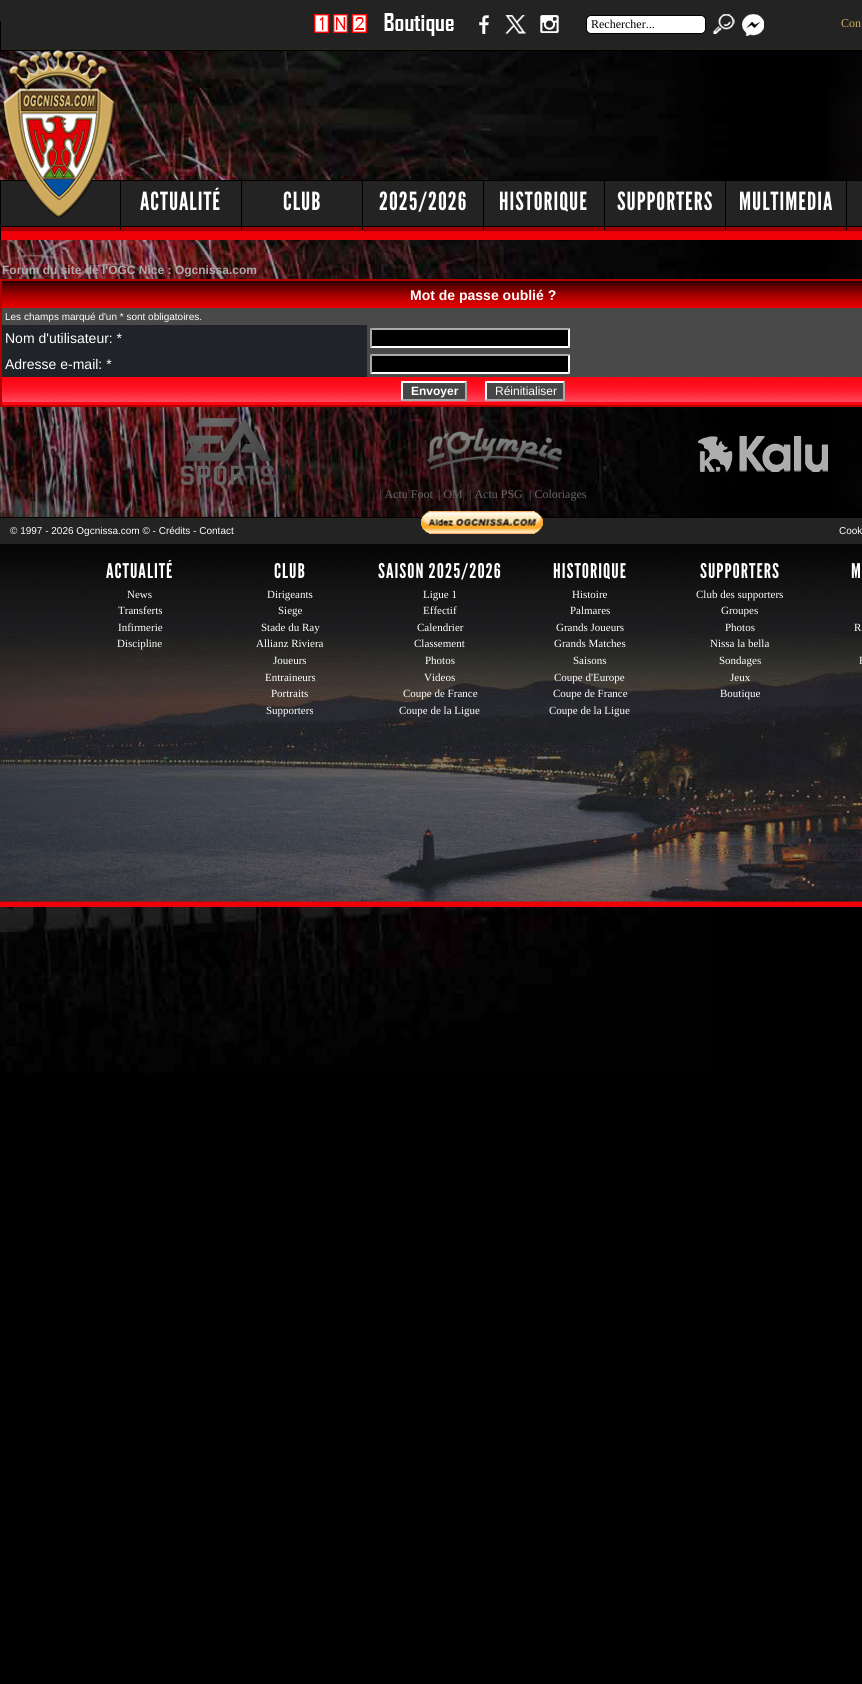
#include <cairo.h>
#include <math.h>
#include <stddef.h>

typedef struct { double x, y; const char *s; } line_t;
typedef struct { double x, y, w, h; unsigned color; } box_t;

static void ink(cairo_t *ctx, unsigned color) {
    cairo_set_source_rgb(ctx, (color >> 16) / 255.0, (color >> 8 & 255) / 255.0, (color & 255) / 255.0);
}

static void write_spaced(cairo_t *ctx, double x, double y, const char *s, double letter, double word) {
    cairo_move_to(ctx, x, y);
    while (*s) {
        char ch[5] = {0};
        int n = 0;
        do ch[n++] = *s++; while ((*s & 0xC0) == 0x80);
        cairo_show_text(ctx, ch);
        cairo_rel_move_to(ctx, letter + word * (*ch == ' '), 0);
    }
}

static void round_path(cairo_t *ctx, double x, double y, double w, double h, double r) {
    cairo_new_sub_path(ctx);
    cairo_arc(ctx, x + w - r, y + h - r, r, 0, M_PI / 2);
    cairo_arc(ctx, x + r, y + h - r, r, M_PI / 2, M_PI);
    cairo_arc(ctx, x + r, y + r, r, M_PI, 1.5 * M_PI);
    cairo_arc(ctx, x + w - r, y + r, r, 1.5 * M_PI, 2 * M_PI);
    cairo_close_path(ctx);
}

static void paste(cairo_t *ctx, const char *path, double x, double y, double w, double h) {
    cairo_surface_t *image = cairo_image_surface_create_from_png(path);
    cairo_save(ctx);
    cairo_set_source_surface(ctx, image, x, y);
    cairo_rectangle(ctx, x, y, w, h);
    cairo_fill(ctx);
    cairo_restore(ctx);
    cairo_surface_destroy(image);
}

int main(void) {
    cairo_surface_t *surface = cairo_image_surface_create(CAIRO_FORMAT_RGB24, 862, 1684);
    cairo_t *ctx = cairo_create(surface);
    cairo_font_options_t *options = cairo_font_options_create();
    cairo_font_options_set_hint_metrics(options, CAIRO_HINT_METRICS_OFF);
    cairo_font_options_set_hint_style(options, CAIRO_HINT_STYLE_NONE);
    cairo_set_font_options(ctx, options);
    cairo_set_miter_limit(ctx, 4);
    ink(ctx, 0x000000);
    cairo_paint(ctx);
    paste(ctx, "media/1.png", 0, 51, 862, 1022);
    paste(ctx, "media/2.png", 0, 0, 862, 240);
    paste(ctx, "media/3.png", 314, 14, 53, 19);
    paste(ctx, "media/4.png", 384, 13, 70, 23);
    paste(ctx, "media/5.png", 470, 12, 22, 22);
    paste(ctx, "media/6.png", 505, 15, 21, 19);
    paste(ctx, "media/7.png", 540, 15, 19, 18);
    ink(ctx, 0xFFFFFF);
    round_path(ctx, 586.5, 15.5, 119, 18, 4.5);
    cairo_fill_preserve(ctx);
    ink(ctx, 0x000000);
    cairo_set_line_width(ctx, 1);
    cairo_stroke(ctx);
    cairo_select_font_face(ctx, "Liberation Serif", CAIRO_FONT_SLANT_NORMAL, CAIRO_FONT_WEIGHT_NORMAL);
    cairo_set_font_size(ctx, 12);
    cairo_move_to(ctx, 591, 28);
    cairo_show_text(ctx, "Rechercher...");
    paste(ctx, "media/8.png", 713, 14, 22, 20);
    paste(ctx, "media/9.png", 742, 14, 22, 22);
    ink(ctx, 0xCDAA5E);
    cairo_move_to(ctx, 841, 27);
    cairo_show_text(ctx, "Con");
    paste(ctx, "media/10.png", 3, 50, 112, 168);
    ink(ctx, 0x000000);
    cairo_rectangle(ctx, 120, 180, 1, 50);
    cairo_fill(ctx);
    cairo_rectangle(ctx, 241, 180, 1, 50);
    cairo_fill(ctx);
    cairo_select_font_face(ctx, "League Gothic", CAIRO_FONT_SLANT_NORMAL, CAIRO_FONT_WEIGHT_NORMAL);
    cairo_set_font_size(ctx, 25);
    ink(ctx, 0xFFFFFF);
    write_spaced(ctx, 140, 210, "ACTUALITÉ", 1, 0);
    ink(ctx, 0x000000);
    cairo_rectangle(ctx, 362, 180, 1, 50);
    cairo_fill(ctx);
    ink(ctx, 0xFFFFFF);
    write_spaced(ctx, 283, 210, "CLUB", 1, 0);
    ink(ctx, 0x000000);
    cairo_rectangle(ctx, 483, 180, 1, 50);
    cairo_fill(ctx);
    ink(ctx, 0xFFFFFF);
    write_spaced(ctx, 379, 210, "2025/2026", 1, 0);
    ink(ctx, 0x000000);
    cairo_rectangle(ctx, 604, 180, 1, 50);
    cairo_fill(ctx);
    ink(ctx, 0xFFFFFF);
    write_spaced(ctx, 499, 210, "HISTORIQUE", 1, 0);
    ink(ctx, 0x000000);
    cairo_rectangle(ctx, 725, 180, 1, 50);
    cairo_fill(ctx);
    ink(ctx, 0xFFFFFF);
    write_spaced(ctx, 617, 210, "SUPPORTERS", 1, 0);
    ink(ctx, 0x000000);
    cairo_rectangle(ctx, 846, 180, 1, 50);
    cairo_fill(ctx);
    ink(ctx, 0xFFFFFF);
    write_spaced(ctx, 739, 210, "MULTIMEDIA", 1, 0);
    cairo_select_font_face(ctx, "Liberation Sans", CAIRO_FONT_SLANT_NORMAL, CAIRO_FONT_WEIGHT_BOLD);
    cairo_set_font_size(ctx, 12);
    ink(ctx, 0xAAAAAA);
    cairo_move_to(ctx, 2, 274);
    cairo_show_text(ctx, "Forum du site de l'OGC Nice : Ogcnissa.com");
    {
        static const box_t items[] = {
            {0, 279, 862, 2, 0xB40000},
            {0, 405, 862, 2, 0xB40000},
            {0, 279, 2, 128, 0xB40000},
        };
        for (size_t i = 0; i < sizeof items / sizeof *items; i++) {
            ink(ctx, items[i].color);
            cairo_rectangle(ctx, items[i].x, items[i].y, items[i].w, items[i].h);
            cairo_fill(ctx);
        }
    }
    paste(ctx, "media/11.png", 2, 281, 860, 27);
    cairo_set_font_size(ctx, 14);
    ink(ctx, 0xFFFFFF);
    cairo_move_to(ctx, 410, 300);
    cairo_show_text(ctx, "Mot de passe oublié ?");
    ink(ctx, 0x494949);
    cairo_rectangle(ctx, 2, 308, 860, 17);
    cairo_fill(ctx);
    cairo_select_font_face(ctx, "Liberation Sans", CAIRO_FONT_SLANT_NORMAL, CAIRO_FONT_WEIGHT_NORMAL);
    cairo_set_font_size(ctx, 10);
    ink(ctx, 0xFFFFFF);
    cairo_move_to(ctx, 5, 320);
    cairo_show_text(ctx, "Les champs marqué d'un * sont obligatoires.");
    ink(ctx, 0x202428);
    cairo_rectangle(ctx, 2, 325, 365, 52);
    cairo_fill(ctx);
    cairo_set_font_size(ctx, 14);
    ink(ctx, 0xFFFFFF);
    cairo_move_to(ctx, 5, 343);
    cairo_show_text(ctx, "Nom d'utilisateur: *");
    ink(ctx, 0x494949);
    cairo_rectangle(ctx, 367, 325, 495, 52);
    cairo_fill(ctx);
    ink(ctx, 0x000000);
    cairo_rectangle(ctx, 370, 328, 200, 20);
    cairo_fill(ctx);
    ink(ctx, 0xAAAAAA);
    cairo_new_path(ctx);
    cairo_move_to(ctx, 370, 328);
    cairo_line_to(ctx, 570, 328);
    cairo_line_to(ctx, 568, 330);
    cairo_line_to(ctx, 372, 330);
    cairo_close_path(ctx);
    cairo_fill(ctx);
    ink(ctx, 0xFFFFFF);
    cairo_new_path(ctx);
    cairo_move_to(ctx, 570, 328);
    cairo_line_to(ctx, 570, 348);
    cairo_line_to(ctx, 568, 346);
    cairo_line_to(ctx, 568, 330);
    cairo_close_path(ctx);
    cairo_fill(ctx);
    cairo_new_path(ctx);
    cairo_move_to(ctx, 570, 348);
    cairo_line_to(ctx, 370, 348);
    cairo_line_to(ctx, 372, 346);
    cairo_line_to(ctx, 568, 346);
    cairo_close_path(ctx);
    cairo_fill(ctx);
    ink(ctx, 0xAAAAAA);
    cairo_new_path(ctx);
    cairo_move_to(ctx, 370, 348);
    cairo_line_to(ctx, 370, 328);
    cairo_line_to(ctx, 372, 330);
    cairo_line_to(ctx, 372, 346);
    cairo_close_path(ctx);
    cairo_fill(ctx);
    ink(ctx, 0xFFFFFF);
    cairo_move_to(ctx, 5, 369);
    cairo_show_text(ctx, "Adresse e-mail: *");
    ink(ctx, 0x000000);
    cairo_rectangle(ctx, 370, 354, 200, 20);
    cairo_fill(ctx);
    ink(ctx, 0xAAAAAA);
    cairo_new_path(ctx);
    cairo_move_to(ctx, 370, 354);
    cairo_line_to(ctx, 570, 354);
    cairo_line_to(ctx, 568, 356);
    cairo_line_to(ctx, 372, 356);
    cairo_close_path(ctx);
    cairo_fill(ctx);
    ink(ctx, 0xFFFFFF);
    cairo_new_path(ctx);
    cairo_move_to(ctx, 570, 354);
    cairo_line_to(ctx, 570, 374);
    cairo_line_to(ctx, 568, 372);
    cairo_line_to(ctx, 568, 356);
    cairo_close_path(ctx);
    cairo_fill(ctx);
    cairo_new_path(ctx);
    cairo_move_to(ctx, 570, 374);
    cairo_line_to(ctx, 370, 374);
    cairo_line_to(ctx, 372, 372);
    cairo_line_to(ctx, 568, 372);
    cairo_close_path(ctx);
    cairo_fill(ctx);
    ink(ctx, 0xAAAAAA);
    cairo_new_path(ctx);
    cairo_move_to(ctx, 370, 374);
    cairo_line_to(ctx, 370, 354);
    cairo_line_to(ctx, 372, 356);
    cairo_line_to(ctx, 372, 372);
    cairo_close_path(ctx);
    cairo_fill(ctx);
    paste(ctx, "media/12.png", 2, 377, 860, 28);
    ink(ctx, 0x464646);
    cairo_rectangle(ctx, 401, 381, 66, 20);
    cairo_fill(ctx);
    ink(ctx, 0xFFFFFF);
    cairo_new_path(ctx);
    cairo_move_to(ctx, 401, 381);
    cairo_line_to(ctx, 467, 381);
    cairo_line_to(ctx, 465, 383);
    cairo_line_to(ctx, 403, 383);
    cairo_close_path(ctx);
    cairo_fill(ctx);
    ink(ctx, 0xAAAAAA);
    cairo_new_path(ctx);
    cairo_move_to(ctx, 467, 381);
    cairo_line_to(ctx, 467, 401);
    cairo_line_to(ctx, 465, 399);
    cairo_line_to(ctx, 465, 383);
    cairo_close_path(ctx);
    cairo_fill(ctx);
    cairo_new_path(ctx);
    cairo_move_to(ctx, 467, 401);
    cairo_line_to(ctx, 401, 401);
    cairo_line_to(ctx, 403, 399);
    cairo_line_to(ctx, 465, 399);
    cairo_close_path(ctx);
    cairo_fill(ctx);
    ink(ctx, 0xFFFFFF);
    cairo_new_path(ctx);
    cairo_move_to(ctx, 401, 401);
    cairo_line_to(ctx, 401, 381);
    cairo_line_to(ctx, 403, 383);
    cairo_line_to(ctx, 403, 399);
    cairo_close_path(ctx);
    cairo_fill(ctx);
    cairo_select_font_face(ctx, "Liberation Sans", CAIRO_FONT_SLANT_NORMAL, CAIRO_FONT_WEIGHT_BOLD);
    cairo_set_font_size(ctx, 12);
    cairo_move_to(ctx, 411, 395);
    cairo_show_text(ctx, "Envoyer");
    ink(ctx, 0x464646);
    cairo_rectangle(ctx, 485, 381, 80, 20);
    cairo_fill(ctx);
    ink(ctx, 0xFFFFFF);
    cairo_new_path(ctx);
    cairo_move_to(ctx, 485, 381);
    cairo_line_to(ctx, 565, 381);
    cairo_line_to(ctx, 563, 383);
    cairo_line_to(ctx, 487, 383);
    cairo_close_path(ctx);
    cairo_fill(ctx);
    ink(ctx, 0xAAAAAA);
    cairo_new_path(ctx);
    cairo_move_to(ctx, 565, 381);
    cairo_line_to(ctx, 565, 401);
    cairo_line_to(ctx, 563, 399);
    cairo_line_to(ctx, 563, 383);
    cairo_close_path(ctx);
    cairo_fill(ctx);
    cairo_new_path(ctx);
    cairo_move_to(ctx, 565, 401);
    cairo_line_to(ctx, 485, 401);
    cairo_line_to(ctx, 487, 399);
    cairo_line_to(ctx, 563, 399);
    cairo_close_path(ctx);
    cairo_fill(ctx);
    ink(ctx, 0xFFFFFF);
    cairo_new_path(ctx);
    cairo_move_to(ctx, 485, 401);
    cairo_line_to(ctx, 485, 381);
    cairo_line_to(ctx, 487, 383);
    cairo_line_to(ctx, 487, 399);
    cairo_close_path(ctx);
    cairo_fill(ctx);
    cairo_select_font_face(ctx, "Liberation Sans", CAIRO_FONT_SLANT_NORMAL, CAIRO_FONT_WEIGHT_NORMAL);
    cairo_move_to(ctx, 495, 395);
    cairo_show_text(ctx, "Réinitialiser");
    paste(ctx, "media/13.png", 0, 544, 862, 363);
    paste(ctx, "media/14.png", 181, 418, 93, 67);
    paste(ctx, "media/15.png", 427, 428, 135, 42);
    paste(ctx, "media/16.png", 698, 436, 130, 36);
    cairo_select_font_face(ctx, "Liberation Serif", CAIRO_FONT_SLANT_NORMAL, CAIRO_FONT_WEIGHT_NORMAL);
    ink(ctx, 0x656565);
    {
        static const line_t items[] = {
            {379, 498, "| Actu Foot"},
            {438, 498, "| OM"},
            {469, 498, "| Actu PSG"},
            {529, 498, "| Coloriages"},
        };
        for (size_t i = 0; i < sizeof items / sizeof *items; i++) {
            cairo_move_to(ctx, items[i].x, items[i].y);
            cairo_show_text(ctx, items[i].s);
        }
    }
    paste(ctx, "media/18.png", 0, 517, 484, 27);
    paste(ctx, "media/19.png", 484, 517, 378, 27);
    paste(ctx, "media/17.png", 420, 511, 123, 23);
    cairo_select_font_face(ctx, "Liberation Sans", CAIRO_FONT_SLANT_NORMAL, CAIRO_FONT_WEIGHT_NORMAL);
    cairo_set_font_size(ctx, 10);
    ink(ctx, 0xFFFFFF);
    cairo_move_to(ctx, 10, 534);
    cairo_show_text(ctx, "© 1997 - 2026 Ogcnissa.com © - Crédits - Contact");
    cairo_move_to(ctx, 839, 534);
    cairo_show_text(ctx, "Cook");
    cairo_select_font_face(ctx, "League Gothic", CAIRO_FONT_SLANT_NORMAL, CAIRO_FONT_WEIGHT_NORMAL);
    cairo_set_font_size(ctx, 20.25);
    write_spaced(ctx, 106, 578, "ACTUALITÉ", 1, 0);
    cairo_select_font_face(ctx, "Liberation Serif", CAIRO_FONT_SLANT_NORMAL, CAIRO_FONT_WEIGHT_NORMAL);
    cairo_set_font_size(ctx, 11);
    {
        static const line_t items[] = {
            {127, 598, "News"},
            {118, 614, "Transferts"},
            {118, 631, "Infirmerie"},
            {117, 647, "Discipline"},
        };
        for (size_t i = 0; i < sizeof items / sizeof *items; i++) {
            cairo_move_to(ctx, items[i].x, items[i].y);
            cairo_show_text(ctx, items[i].s);
        }
    }
    cairo_select_font_face(ctx, "League Gothic", CAIRO_FONT_SLANT_NORMAL, CAIRO_FONT_WEIGHT_NORMAL);
    cairo_set_font_size(ctx, 20.25);
    write_spaced(ctx, 274, 578, "CLUB", 1, 0);
    cairo_select_font_face(ctx, "Liberation Serif", CAIRO_FONT_SLANT_NORMAL, CAIRO_FONT_WEIGHT_NORMAL);
    cairo_set_font_size(ctx, 11);
    {
        static const line_t items[] = {
            {267, 598, "Dirigeants"},
            {278, 614, "Siege"},
            {261, 631, "Stade du Ray"},
            {256, 647, "Allianz Riviera"},
            {273, 664, "Joueurs"},
            {265, 681, "Entraineurs"},
            {271, 697, "Portraits"},
            {266, 714, "Supporters"},
        };
        for (size_t i = 0; i < sizeof items / sizeof *items; i++) {
            cairo_move_to(ctx, items[i].x, items[i].y);
            cairo_show_text(ctx, items[i].s);
        }
    }
    cairo_select_font_face(ctx, "League Gothic", CAIRO_FONT_SLANT_NORMAL, CAIRO_FONT_WEIGHT_NORMAL);
    cairo_set_font_size(ctx, 20.25);
    write_spaced(ctx, 378, 578, "SAISON 2025/2026", 1, 0);
    cairo_select_font_face(ctx, "Liberation Serif", CAIRO_FONT_SLANT_NORMAL, CAIRO_FONT_WEIGHT_NORMAL);
    cairo_set_font_size(ctx, 11);
    {
        static const line_t items[] = {
            {423, 598, "Ligue 1"},
            {423, 614, "Effectif"},
            {417, 631, "Calendrier"},
            {414, 647, "Classement"},
            {425, 664, "Photos"},
            {424, 681, "Videos"},
            {403, 697, "Coupe de France"},
            {399, 714, "Coupe de la Ligue"},
        };
        for (size_t i = 0; i < sizeof items / sizeof *items; i++) {
            cairo_move_to(ctx, items[i].x, items[i].y);
            cairo_show_text(ctx, items[i].s);
        }
    }
    cairo_select_font_face(ctx, "League Gothic", CAIRO_FONT_SLANT_NORMAL, CAIRO_FONT_WEIGHT_NORMAL);
    cairo_set_font_size(ctx, 20.25);
    write_spaced(ctx, 553, 578, "HISTORIQUE", 1, 0);
    cairo_select_font_face(ctx, "Liberation Serif", CAIRO_FONT_SLANT_NORMAL, CAIRO_FONT_WEIGHT_NORMAL);
    cairo_set_font_size(ctx, 11);
    {
        static const line_t items[] = {
            {572, 598, "Histoire"},
            {570, 614, "Palmares"},
            {556, 631, "Grands Joueurs"},
            {554, 647, "Grands Matches"},
            {573, 664, "Saisons"},
            {554, 681, "Coupe d'Europe"},
            {553, 697, "Coupe de France"},
            {549, 714, "Coupe de la Ligue"},
        };
        for (size_t i = 0; i < sizeof items / sizeof *items; i++) {
            cairo_move_to(ctx, items[i].x, items[i].y);
            cairo_show_text(ctx, items[i].s);
        }
    }
    cairo_select_font_face(ctx, "League Gothic", CAIRO_FONT_SLANT_NORMAL, CAIRO_FONT_WEIGHT_NORMAL);
    cairo_set_font_size(ctx, 20.25);
    write_spaced(ctx, 700, 578, "SUPPORTERS", 1, 0);
    cairo_select_font_face(ctx, "Liberation Serif", CAIRO_FONT_SLANT_NORMAL, CAIRO_FONT_WEIGHT_NORMAL);
    cairo_set_font_size(ctx, 11);
    {
        static const line_t items[] = {
            {696, 598, "Club des supporters"},
            {721, 614, "Groupes"},
            {725, 631, "Photos"},
            {710, 647, "Nissa la bella"},
            {719, 664, "Sondages"},
            {730, 681, "Jeux"},
            {720, 697, "Boutique"},
        };
        for (size_t i = 0; i < sizeof items / sizeof *items; i++) {
            cairo_move_to(ctx, items[i].x, items[i].y);
            cairo_show_text(ctx, items[i].s);
        }
    }
    cairo_select_font_face(ctx, "League Gothic", CAIRO_FONT_SLANT_NORMAL, CAIRO_FONT_WEIGHT_NORMAL);
    cairo_set_font_size(ctx, 20.25);
    write_spaced(ctx, 851, 578, "M", 1, 0);
    cairo_select_font_face(ctx, "Liberation Serif", CAIRO_FONT_SLANT_NORMAL, CAIRO_FONT_WEIGHT_NORMAL);
    cairo_set_font_size(ctx, 11);
    cairo_move_to(ctx, 854, 631);
    cairo_show_text(ctx, "R");
    cairo_move_to(ctx, 859, 664);
    cairo_show_text(ctx, "F");
    cairo_surface_write_to_png(surface, "image.png");
    cairo_font_options_destroy(options);
    cairo_destroy(ctx);
    cairo_surface_destroy(surface);
    return 0;
}
